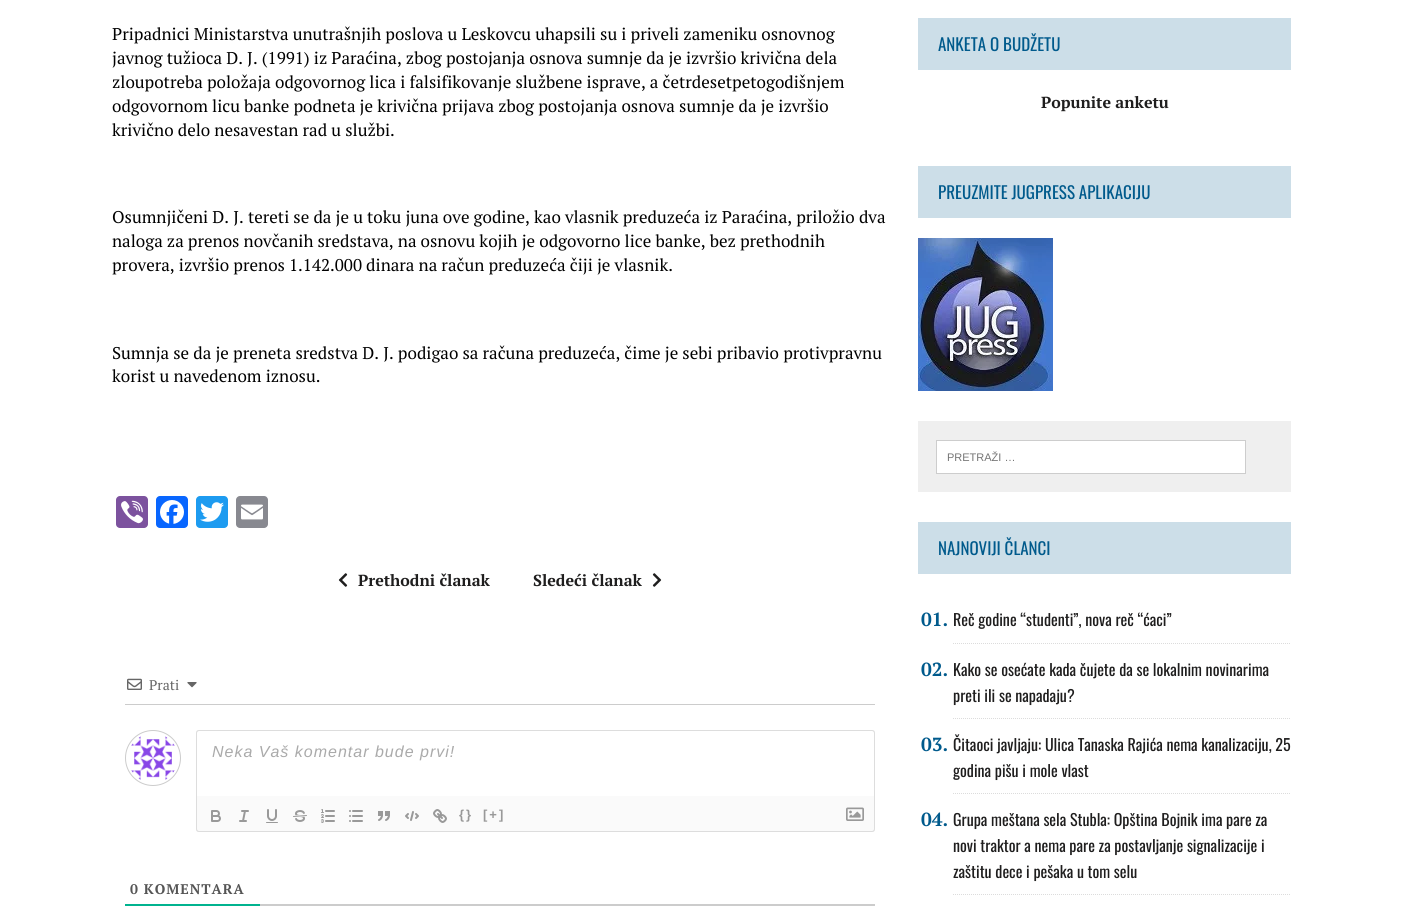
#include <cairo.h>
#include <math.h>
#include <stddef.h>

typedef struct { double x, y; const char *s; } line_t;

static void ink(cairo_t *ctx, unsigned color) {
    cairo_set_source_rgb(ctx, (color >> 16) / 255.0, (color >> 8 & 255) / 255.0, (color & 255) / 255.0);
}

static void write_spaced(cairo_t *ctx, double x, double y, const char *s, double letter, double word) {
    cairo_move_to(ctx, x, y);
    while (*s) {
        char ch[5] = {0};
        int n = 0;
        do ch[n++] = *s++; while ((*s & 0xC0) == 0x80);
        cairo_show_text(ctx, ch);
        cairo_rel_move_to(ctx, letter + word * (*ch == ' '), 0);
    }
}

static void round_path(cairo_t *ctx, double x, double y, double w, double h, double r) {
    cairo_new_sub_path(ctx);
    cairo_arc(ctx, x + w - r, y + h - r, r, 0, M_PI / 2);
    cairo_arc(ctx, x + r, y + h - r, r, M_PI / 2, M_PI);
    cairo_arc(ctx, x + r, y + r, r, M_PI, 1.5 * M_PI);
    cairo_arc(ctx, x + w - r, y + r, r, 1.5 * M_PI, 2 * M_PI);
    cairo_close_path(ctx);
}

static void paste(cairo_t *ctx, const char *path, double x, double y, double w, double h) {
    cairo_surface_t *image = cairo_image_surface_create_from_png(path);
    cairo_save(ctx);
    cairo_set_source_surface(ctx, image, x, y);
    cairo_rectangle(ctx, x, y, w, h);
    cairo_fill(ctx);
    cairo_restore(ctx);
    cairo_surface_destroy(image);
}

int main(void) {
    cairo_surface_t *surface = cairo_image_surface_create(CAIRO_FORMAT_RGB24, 1403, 907);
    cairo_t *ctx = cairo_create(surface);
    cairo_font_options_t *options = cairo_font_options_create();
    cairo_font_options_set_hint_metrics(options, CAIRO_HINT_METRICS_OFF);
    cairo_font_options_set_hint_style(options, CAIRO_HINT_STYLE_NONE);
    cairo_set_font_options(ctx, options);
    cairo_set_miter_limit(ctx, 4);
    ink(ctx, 0xFFFFFF);
    cairo_paint(ctx);
    cairo_select_font_face(ctx, "PT Serif", CAIRO_FONT_SLANT_NORMAL, CAIRO_FONT_WEIGHT_NORMAL);
    cairo_set_font_size(ctx, 17);
    ink(ctx, 0x000000);
    {
        static const line_t items[] = {
            {112, 40, "Pripadnici Ministarstva unutrašnjih poslova u Leskovcu uhapsili su i priveli zameniku osnovnog"},
            {112, 64, "javnog tužioca D. J. (1991) iz Paraćina, zbog postojanja osnova sumnje da je izvršio krivična dela"},
            {112, 88, "zloupotreba položaja odgovornog lica i falsifikovanje službene isprave, a četrdesetpetogodišnjem"},
            {112, 112, "odgovornom licu banke podneta je krivična prijava zbog postojanja osnova sumnje da je izvršio"},
            {112, 136, "krivično delo nesavestan rad u službi."},
            {112, 223, "Osumnjičeni D. J. tereti se da je u toku juna ove godine, kao vlasnik preduzeća iz Paraćina, priložio dva"},
            {112, 247, "naloga za prenos novčanih sredstava, na osnovu kojih je odgovorno lice banke, bez prethodnih"},
            {112, 271, "provera, izvršio prenos 1.142.000 dinara na račun preduzeća čiji je vlasnik."},
            {112, 359, "Sumnja se da je preneta sredstva D. J. podigao sa računa preduzeća, čime je sebi pribavio protivpravnu"},
            {112, 382, "korist u navedenom iznosu."},
        };
        for (size_t i = 0; i < sizeof items / sizeof *items; i++) {
            cairo_move_to(ctx, items[i].x, items[i].y);
            cairo_show_text(ctx, items[i].s);
        }
    }
    ink(ctx, 0x7C529E);
    round_path(ctx, 116, 496, 32, 32, 4);
    cairo_fill(ctx);
    paste(ctx, "media/1.png", 121, 500, 22, 24);
    ink(ctx, 0x0866FF);
    round_path(ctx, 156, 496, 32, 32, 4);
    cairo_fill(ctx);
    paste(ctx, "media/2.png", 160, 500, 24, 24);
    ink(ctx, 0x1D9BF0);
    round_path(ctx, 196, 496, 32, 32, 4);
    cairo_fill(ctx);
    paste(ctx, "media/3.png", 200, 502, 24, 20);
    ink(ctx, 0x888990);
    round_path(ctx, 236, 496, 32, 32, 4);
    cairo_fill(ctx);
    paste(ctx, "media/4.png", 241, 504, 22, 16);
    paste(ctx, "media/5.png", 338, 573, 10, 14);
    cairo_select_font_face(ctx, "PT Serif", CAIRO_FONT_SLANT_NORMAL, CAIRO_FONT_WEIGHT_BOLD);
    cairo_set_font_size(ctx, 16);
    ink(ctx, 0x1F1E1E);
    cairo_move_to(ctx, 358, 586);
    cairo_show_text(ctx, "Prethodni članak");
    cairo_move_to(ctx, 533, 586);
    cairo_show_text(ctx, "Sledeći članak");
    paste(ctx, "media/6.png", 652, 573, 10, 14);
    ink(ctx, 0xCCCCCC);
    cairo_rectangle(ctx, 125, 704, 750, 1);
    cairo_fill(ctx);
    paste(ctx, "media/7.png", 127, 678, 15, 12);
    cairo_select_font_face(ctx, "PT Serif", CAIRO_FONT_SLANT_NORMAL, CAIRO_FONT_WEIGHT_NORMAL);
    cairo_set_font_size(ctx, 14);
    ink(ctx, 0x666666);
    cairo_move_to(ctx, 149, 690);
    cairo_show_text(ctx, "Prati");
    paste(ctx, "media/8.png", 187, 682, 10, 6);
    cairo_arc(ctx, 153, 758, 27.5, 0, 2 * M_PI);
    ink(ctx, 0xCCCCCC);
    cairo_set_line_width(ctx, 1);
    cairo_stroke(ctx);
    paste(ctx, "media/9.png", 131, 736, 44, 44);
    ink(ctx, 0xDDDDDD);
    cairo_set_fill_rule(ctx, CAIRO_FILL_RULE_EVEN_ODD);
    cairo_new_path(ctx);
    cairo_move_to(ctx, 199, 730);
    cairo_line_to(ctx, 872, 730);
    cairo_curve_to(ctx, 874, 730, 875, 731, 875, 733);
    cairo_line_to(ctx, 875, 796);
    cairo_line_to(ctx, 196, 796);
    cairo_line_to(ctx, 196, 733);
    cairo_curve_to(ctx, 196, 731, 197, 730, 199, 730);
    cairo_close_path(ctx);
    cairo_move_to(ctx, 199, 731);
    cairo_line_to(ctx, 872, 731);
    cairo_curve_to(ctx, 873, 731, 874, 732, 874, 733);
    cairo_line_to(ctx, 874, 796);
    cairo_line_to(ctx, 197, 796);
    cairo_line_to(ctx, 197, 733);
    cairo_curve_to(ctx, 197, 732, 198, 731, 199, 731);
    cairo_close_path(ctx);
    cairo_fill(ctx);
    cairo_select_font_face(ctx, "Liberation Sans", CAIRO_FONT_SLANT_ITALIC, CAIRO_FONT_WEIGHT_NORMAL);
    cairo_set_font_size(ctx, 16);
    ink(ctx, 0xAAAAAA);
    write_spaced(ctx, 212, 757, "Neka Vaš komentar bude prvi!", 1, 0);
    ink(ctx, 0xFAFAFA);
    cairo_new_path(ctx);
    cairo_move_to(ctx, 196, 796);
    cairo_line_to(ctx, 875, 796);
    cairo_line_to(ctx, 875, 829);
    cairo_curve_to(ctx, 875, 830.5, 873.5, 832, 872, 832);
    cairo_line_to(ctx, 199, 832);
    cairo_curve_to(ctx, 197.5, 832, 196, 830.5, 196, 829);
    cairo_close_path(ctx);
    cairo_fill(ctx);
    ink(ctx, 0xDDDDDD);
    cairo_new_path(ctx);
    cairo_move_to(ctx, 196, 796);
    cairo_line_to(ctx, 875, 796);
    cairo_line_to(ctx, 875, 829);
    cairo_curve_to(ctx, 875, 831, 874, 832, 872, 832);
    cairo_line_to(ctx, 199, 832);
    cairo_curve_to(ctx, 197, 832, 196, 831, 196, 829);
    cairo_close_path(ctx);
    cairo_move_to(ctx, 197, 796);
    cairo_line_to(ctx, 874, 796);
    cairo_line_to(ctx, 874, 829);
    cairo_curve_to(ctx, 874, 830, 873, 831, 872, 831);
    cairo_line_to(ctx, 199, 831);
    cairo_curve_to(ctx, 198, 831, 197, 830, 197, 829);
    cairo_close_path(ctx);
    cairo_fill(ctx);
    paste(ctx, "media/10.png", 211, 810, 10, 12);
    paste(ctx, "media/11.png", 239, 810, 10, 12);
    paste(ctx, "media/12.png", 266, 809, 12, 14);
    paste(ctx, "media/13.png", 293, 810, 14, 12);
    paste(ctx, "media/14.png", 321, 809, 14, 14);
    paste(ctx, "media/15.png", 349, 810, 14, 12);
    paste(ctx, "media/16.png", 378, 811, 12, 10);
    paste(ctx, "media/17.png", 405, 811, 14, 10);
    paste(ctx, "media/18.png", 433, 809, 14, 14);
    cairo_select_font_face(ctx, "Liberation Sans", CAIRO_FONT_SLANT_NORMAL, CAIRO_FONT_WEIGHT_BOLD);
    cairo_set_font_size(ctx, 13);
    ink(ctx, 0x999999);
    write_spaced(ctx, 459, 819, "{}", 2, 0);
    write_spaced(ctx, 483, 819, "[+]", 2, 0);
    paste(ctx, "media/19.png", 846, 807, 18, 14);
    ink(ctx, 0xCCCCCC);
    cairo_rectangle(ctx, 260, 904, 615, 2);
    cairo_fill(ctx);
    ink(ctx, 0x00B38F);
    cairo_rectangle(ctx, 125, 904, 135, 2);
    cairo_fill(ctx);
    cairo_select_font_face(ctx, "PT Serif", CAIRO_FONT_SLANT_NORMAL, CAIRO_FONT_WEIGHT_BOLD);
    cairo_set_font_size(ctx, 14);
    ink(ctx, 0x555555);
    write_spaced(ctx, 130, 894, "0 KOMENTARA", 1, 0);
    ink(ctx, 0xCCDEE8);
    cairo_rectangle(ctx, 918, 18, 373, 52);
    cairo_fill(ctx);
    cairo_select_font_face(ctx, "Oswald", CAIRO_FONT_SLANT_NORMAL, CAIRO_FONT_WEIGHT_NORMAL);
    cairo_set_font_size(ctx, 17);
    ink(ctx, 0x005A8C);
    cairo_move_to(ctx, 938, 51);
    cairo_show_text(ctx, "ANKETA O BUDŽETU");
    cairo_select_font_face(ctx, "PT Serif", CAIRO_FONT_SLANT_NORMAL, CAIRO_FONT_WEIGHT_BOLD);
    cairo_set_font_size(ctx, 16);
    ink(ctx, 0x1F1E1E);
    cairo_move_to(ctx, 1041, 108);
    cairo_show_text(ctx, "Popunite anketu");
    ink(ctx, 0xCCDEE8);
    cairo_rectangle(ctx, 918, 166, 373, 52);
    cairo_fill(ctx);
    cairo_select_font_face(ctx, "Oswald", CAIRO_FONT_SLANT_NORMAL, CAIRO_FONT_WEIGHT_NORMAL);
    cairo_set_font_size(ctx, 17);
    ink(ctx, 0x005A8C);
    cairo_move_to(ctx, 938, 199);
    cairo_show_text(ctx, "PREUZMITE JUGPRESS APLIKACIJU");
    paste(ctx, "media/20.png", 918, 238, 135, 153);
    ink(ctx, 0xEFEFEF);
    cairo_rectangle(ctx, 918, 421, 373, 71);
    cairo_fill(ctx);
    ink(ctx, 0xFFFFFF);
    cairo_rectangle(ctx, 936.5, 440.5, 309, 33);
    cairo_fill_preserve(ctx);
    ink(ctx, 0xCDCDCD);
    cairo_stroke(ctx);
    cairo_select_font_face(ctx, "Liberation Sans", CAIRO_FONT_SLANT_NORMAL, CAIRO_FONT_WEIGHT_NORMAL);
    cairo_set_font_size(ctx, 11);
    ink(ctx, 0x757575);
    cairo_move_to(ctx, 947, 461);
    cairo_show_text(ctx, "PRETRAŽI …");
    ink(ctx, 0xCCDEE8);
    cairo_rectangle(ctx, 918, 522, 373, 52);
    cairo_fill(ctx);
    cairo_select_font_face(ctx, "Oswald", CAIRO_FONT_SLANT_NORMAL, CAIRO_FONT_WEIGHT_NORMAL);
    cairo_set_font_size(ctx, 17);
    ink(ctx, 0x005A8C);
    cairo_move_to(ctx, 938, 555);
    cairo_show_text(ctx, "NAJNOVIJI ČLANCI");
    cairo_new_path(ctx);
    cairo_move_to(ctx, 953, 643.5);
    cairo_line_to(ctx, 1291, 643.5);
    ink(ctx, 0xDCDCDC);
    cairo_set_dash(ctx, (double[]){1, 1}, 2, 0);
    cairo_stroke(ctx);
    cairo_select_font_face(ctx, "PT Serif", CAIRO_FONT_SLANT_NORMAL, CAIRO_FONT_WEIGHT_BOLD);
    cairo_set_font_size(ctx, 19);
    ink(ctx, 0x005A8C);
    cairo_move_to(ctx, 921, 626);
    cairo_show_text(ctx, "01.");
    cairo_select_font_face(ctx, "Oswald", CAIRO_FONT_SLANT_NORMAL, CAIRO_FONT_WEIGHT_NORMAL);
    cairo_set_font_size(ctx, 16);
    ink(ctx, 0x1F1E1E);
    cairo_move_to(ctx, 953, 626);
    cairo_show_text(ctx, "Reč godine “studenti”, nova reč “ćaci”");
    cairo_new_path(ctx);
    cairo_move_to(ctx, 953, 718.5);
    cairo_line_to(ctx, 1291, 718.5);
    ink(ctx, 0xDCDCDC);
    cairo_stroke(ctx);
    cairo_select_font_face(ctx, "PT Serif", CAIRO_FONT_SLANT_NORMAL, CAIRO_FONT_WEIGHT_BOLD);
    cairo_set_font_size(ctx, 19);
    ink(ctx, 0x005A8C);
    cairo_move_to(ctx, 921, 676);
    cairo_show_text(ctx, "02.");
    cairo_select_font_face(ctx, "Oswald", CAIRO_FONT_SLANT_NORMAL, CAIRO_FONT_WEIGHT_NORMAL);
    cairo_set_font_size(ctx, 16);
    ink(ctx, 0x1F1E1E);
    cairo_move_to(ctx, 953, 676);
    cairo_show_text(ctx, "Kako se osećate kada čujete da se lokalnim novinarima");
    cairo_move_to(ctx, 953, 702);
    cairo_show_text(ctx, "preti ili se napadaju?");
    cairo_new_path(ctx);
    cairo_move_to(ctx, 953, 793.5);
    cairo_line_to(ctx, 1291, 793.5);
    ink(ctx, 0xDCDCDC);
    cairo_stroke(ctx);
    cairo_select_font_face(ctx, "PT Serif", CAIRO_FONT_SLANT_NORMAL, CAIRO_FONT_WEIGHT_BOLD);
    cairo_set_font_size(ctx, 19);
    ink(ctx, 0x005A8C);
    cairo_move_to(ctx, 921, 751);
    cairo_show_text(ctx, "03.");
    cairo_select_font_face(ctx, "Oswald", CAIRO_FONT_SLANT_NORMAL, CAIRO_FONT_WEIGHT_NORMAL);
    cairo_set_font_size(ctx, 16);
    ink(ctx, 0x1F1E1E);
    cairo_move_to(ctx, 953, 751);
    cairo_show_text(ctx, "Čitaoci javljaju: Ulica Tanaska Rajića nema kanalizaciju, 25");
    cairo_move_to(ctx, 953, 777);
    cairo_show_text(ctx, "godina pišu i mole vlast");
    cairo_new_path(ctx);
    cairo_move_to(ctx, 953, 894.5);
    cairo_line_to(ctx, 1291, 894.5);
    ink(ctx, 0xDCDCDC);
    cairo_stroke(ctx);
    cairo_select_font_face(ctx, "PT Serif", CAIRO_FONT_SLANT_NORMAL, CAIRO_FONT_WEIGHT_BOLD);
    cairo_set_font_size(ctx, 19);
    ink(ctx, 0x005A8C);
    cairo_move_to(ctx, 921, 826);
    cairo_show_text(ctx, "04.");
    cairo_select_font_face(ctx, "Oswald", CAIRO_FONT_SLANT_NORMAL, CAIRO_FONT_WEIGHT_NORMAL);
    cairo_set_font_size(ctx, 16);
    ink(ctx, 0x1F1E1E);
    {
        static const line_t items[] = {
            {953, 826, "Grupa meštana sela Stubla: Opština Bojnik ima pare za"},
            {953, 852, "novi traktor a nema pare za postavljanje signalizacije i"},
            {953, 878, "zaštitu dece i pešaka u tom selu"},
        };
        for (size_t i = 0; i < sizeof items / sizeof *items; i++) {
            cairo_move_to(ctx, items[i].x, items[i].y);
            cairo_show_text(ctx, items[i].s);
        }
    }
    cairo_surface_write_to_png(surface, "image.png");
    cairo_font_options_destroy(options);
    cairo_destroy(ctx);
    cairo_surface_destroy(surface);
    return 0;
}
